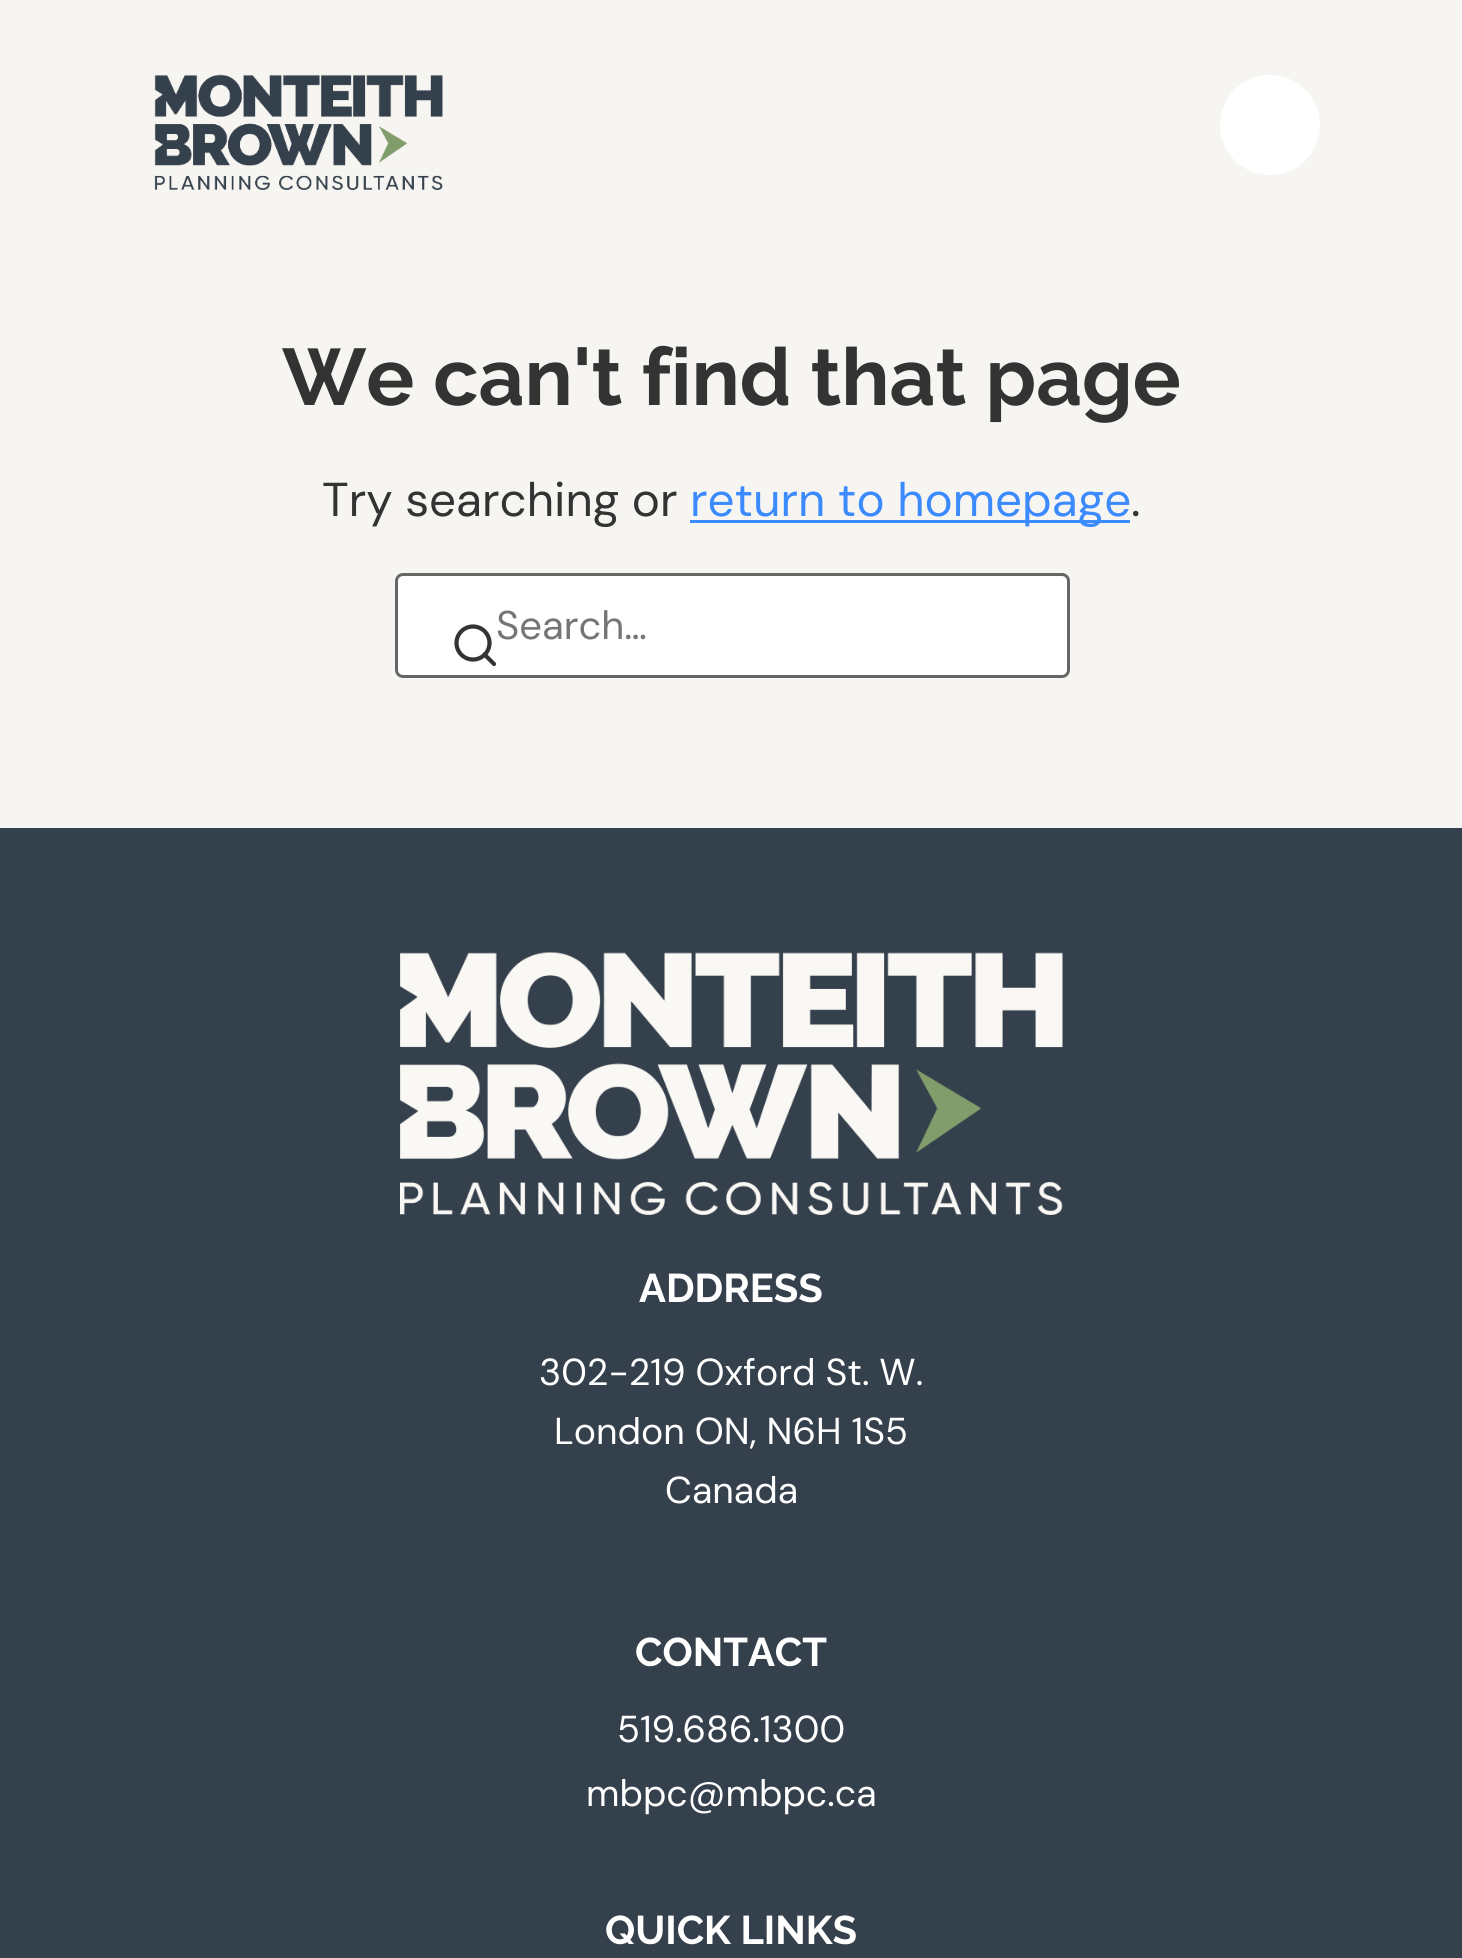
#include <cairo.h>
#include <math.h>
#include <stddef.h>

typedef struct { double x, y; const char *s; } line_t;

static void ink(cairo_t *ctx, unsigned color) {
    cairo_set_source_rgb(ctx, (color >> 16) / 255.0, (color >> 8 & 255) / 255.0, (color & 255) / 255.0);
}

static void round_path(cairo_t *ctx, double x, double y, double w, double h, double r) {
    cairo_new_sub_path(ctx);
    cairo_arc(ctx, x + w - r, y + h - r, r, 0, M_PI / 2);
    cairo_arc(ctx, x + r, y + h - r, r, M_PI / 2, M_PI);
    cairo_arc(ctx, x + r, y + r, r, M_PI, 1.5 * M_PI);
    cairo_arc(ctx, x + w - r, y + r, r, 1.5 * M_PI, 2 * M_PI);
    cairo_close_path(ctx);
}

static void paste(cairo_t *ctx, const char *path, double x, double y, double w, double h) {
    cairo_surface_t *image = cairo_image_surface_create_from_png(path);
    cairo_save(ctx);
    cairo_set_source_surface(ctx, image, x, y);
    cairo_rectangle(ctx, x, y, w, h);
    cairo_fill(ctx);
    cairo_restore(ctx);
    cairo_surface_destroy(image);
}

int main(void) {
    cairo_surface_t *surface = cairo_image_surface_create(CAIRO_FORMAT_RGB24, 1462, 1958);
    cairo_t *ctx = cairo_create(surface);
    cairo_font_options_t *options = cairo_font_options_create();
    cairo_font_options_set_hint_metrics(options, CAIRO_HINT_METRICS_OFF);
    cairo_font_options_set_hint_style(options, CAIRO_HINT_STYLE_NONE);
    cairo_set_font_options(ctx, options);
    cairo_set_miter_limit(ctx, 4);
    ink(ctx, 0xF6F5F2);
    cairo_paint(ctx);
    paste(ctx, "media/1.png", 154, 74, 289, 116);
    ink(ctx, 0xFFFFFF);
    cairo_arc(ctx, 1270, 125, 50, 0, 2 * M_PI);
    cairo_fill(ctx);
    cairo_select_font_face(ctx, "Raleway", CAIRO_FONT_SLANT_NORMAL, CAIRO_FONT_WEIGHT_BOLD);
    cairo_set_font_size(ctx, 80);
    ink(ctx, 0x333333);
    cairo_move_to(ctx, 282, 405);
    cairo_show_text(ctx, "We can't find that page");
    cairo_select_font_face(ctx, "DM Sans", CAIRO_FONT_SLANT_NORMAL, CAIRO_FONT_WEIGHT_NORMAL);
    cairo_set_font_size(ctx, 47.5);
    cairo_move_to(ctx, 322, 516);
    cairo_show_text(ctx, "Try searching or");
    ink(ctx, 0x3B8BFF);
    cairo_rectangle(ctx, 690, 520, 440, 3);
    cairo_fill(ctx);
    cairo_move_to(ctx, 690, 516);
    cairo_show_text(ctx, "return to homepage");
    ink(ctx, 0x333333);
    cairo_move_to(ctx, 1131, 516);
    cairo_show_text(ctx, ".");
    ink(ctx, 0xFFFFFF);
    round_path(ctx, 396.5, 574.5, 672, 102, 6.5);
    cairo_fill_preserve(ctx);
    ink(ctx, 0x666666);
    cairo_set_line_width(ctx, 3);
    cairo_stroke(ctx);
    cairo_arc(ctx, 473, 643, 16.5, 0, 2 * M_PI);
    ink(ctx, 0x333333);
    cairo_set_line_width(ctx, 4.2);
    cairo_stroke(ctx);
    cairo_new_path(ctx);
    cairo_move_to(ctx, 494, 664);
    cairo_line_to(ctx, 484.5, 654.5);
    cairo_set_line_cap(ctx, CAIRO_LINE_CAP_ROUND);
    cairo_set_line_join(ctx, CAIRO_LINE_JOIN_ROUND);
    cairo_stroke(ctx);
    cairo_set_font_size(ctx, 40);
    ink(ctx, 0x757575);
    cairo_move_to(ctx, 496, 639);
    cairo_show_text(ctx, "Search…");
    ink(ctx, 0x34404C);
    cairo_rectangle(ctx, 0, 828, 1462, 1130);
    cairo_fill(ctx);
    paste(ctx, "media/2.png", 400, 952, 663, 263);
    cairo_select_font_face(ctx, "Raleway", CAIRO_FONT_SLANT_NORMAL, CAIRO_FONT_WEIGHT_BOLD);
    ink(ctx, 0xFFFFFF);
    cairo_move_to(ctx, 639, 1302);
    cairo_show_text(ctx, "ADDRESS");
    cairo_select_font_face(ctx, "DM Sans", CAIRO_FONT_SLANT_NORMAL, CAIRO_FONT_WEIGHT_NORMAL);
    cairo_set_font_size(ctx, 37.5);
    {
        static const line_t items[] = {
            {539, 1385, "302-219 Oxford St. W."},
            {554, 1444, "London ON, N6H 1S5"},
            {665, 1503, "Canada"},
        };
        for (size_t i = 0; i < sizeof items / sizeof *items; i++) {
            cairo_move_to(ctx, items[i].x, items[i].y);
            cairo_show_text(ctx, items[i].s);
        }
    }
    cairo_select_font_face(ctx, "Raleway", CAIRO_FONT_SLANT_NORMAL, CAIRO_FONT_WEIGHT_BOLD);
    cairo_set_font_size(ctx, 40);
    cairo_move_to(ctx, 635, 1666);
    cairo_show_text(ctx, "CONTACT");
    cairo_select_font_face(ctx, "DM Sans", CAIRO_FONT_SLANT_NORMAL, CAIRO_FONT_WEIGHT_NORMAL);
    cairo_set_font_size(ctx, 37.5);
    cairo_move_to(ctx, 617, 1742);
    cairo_show_text(ctx, "519.686.1300");
    cairo_move_to(ctx, 586, 1806);
    cairo_show_text(ctx, "mbpc@mbpc.ca");
    cairo_select_font_face(ctx, "Raleway", CAIRO_FONT_SLANT_NORMAL, CAIRO_FONT_WEIGHT_BOLD);
    cairo_set_font_size(ctx, 40);
    cairo_move_to(ctx, 605, 1944);
    cairo_show_text(ctx, "QUICK LINKS");
    cairo_surface_write_to_png(surface, "image.png");
    cairo_font_options_destroy(options);
    cairo_destroy(ctx);
    cairo_surface_destroy(surface);
    return 0;
}
